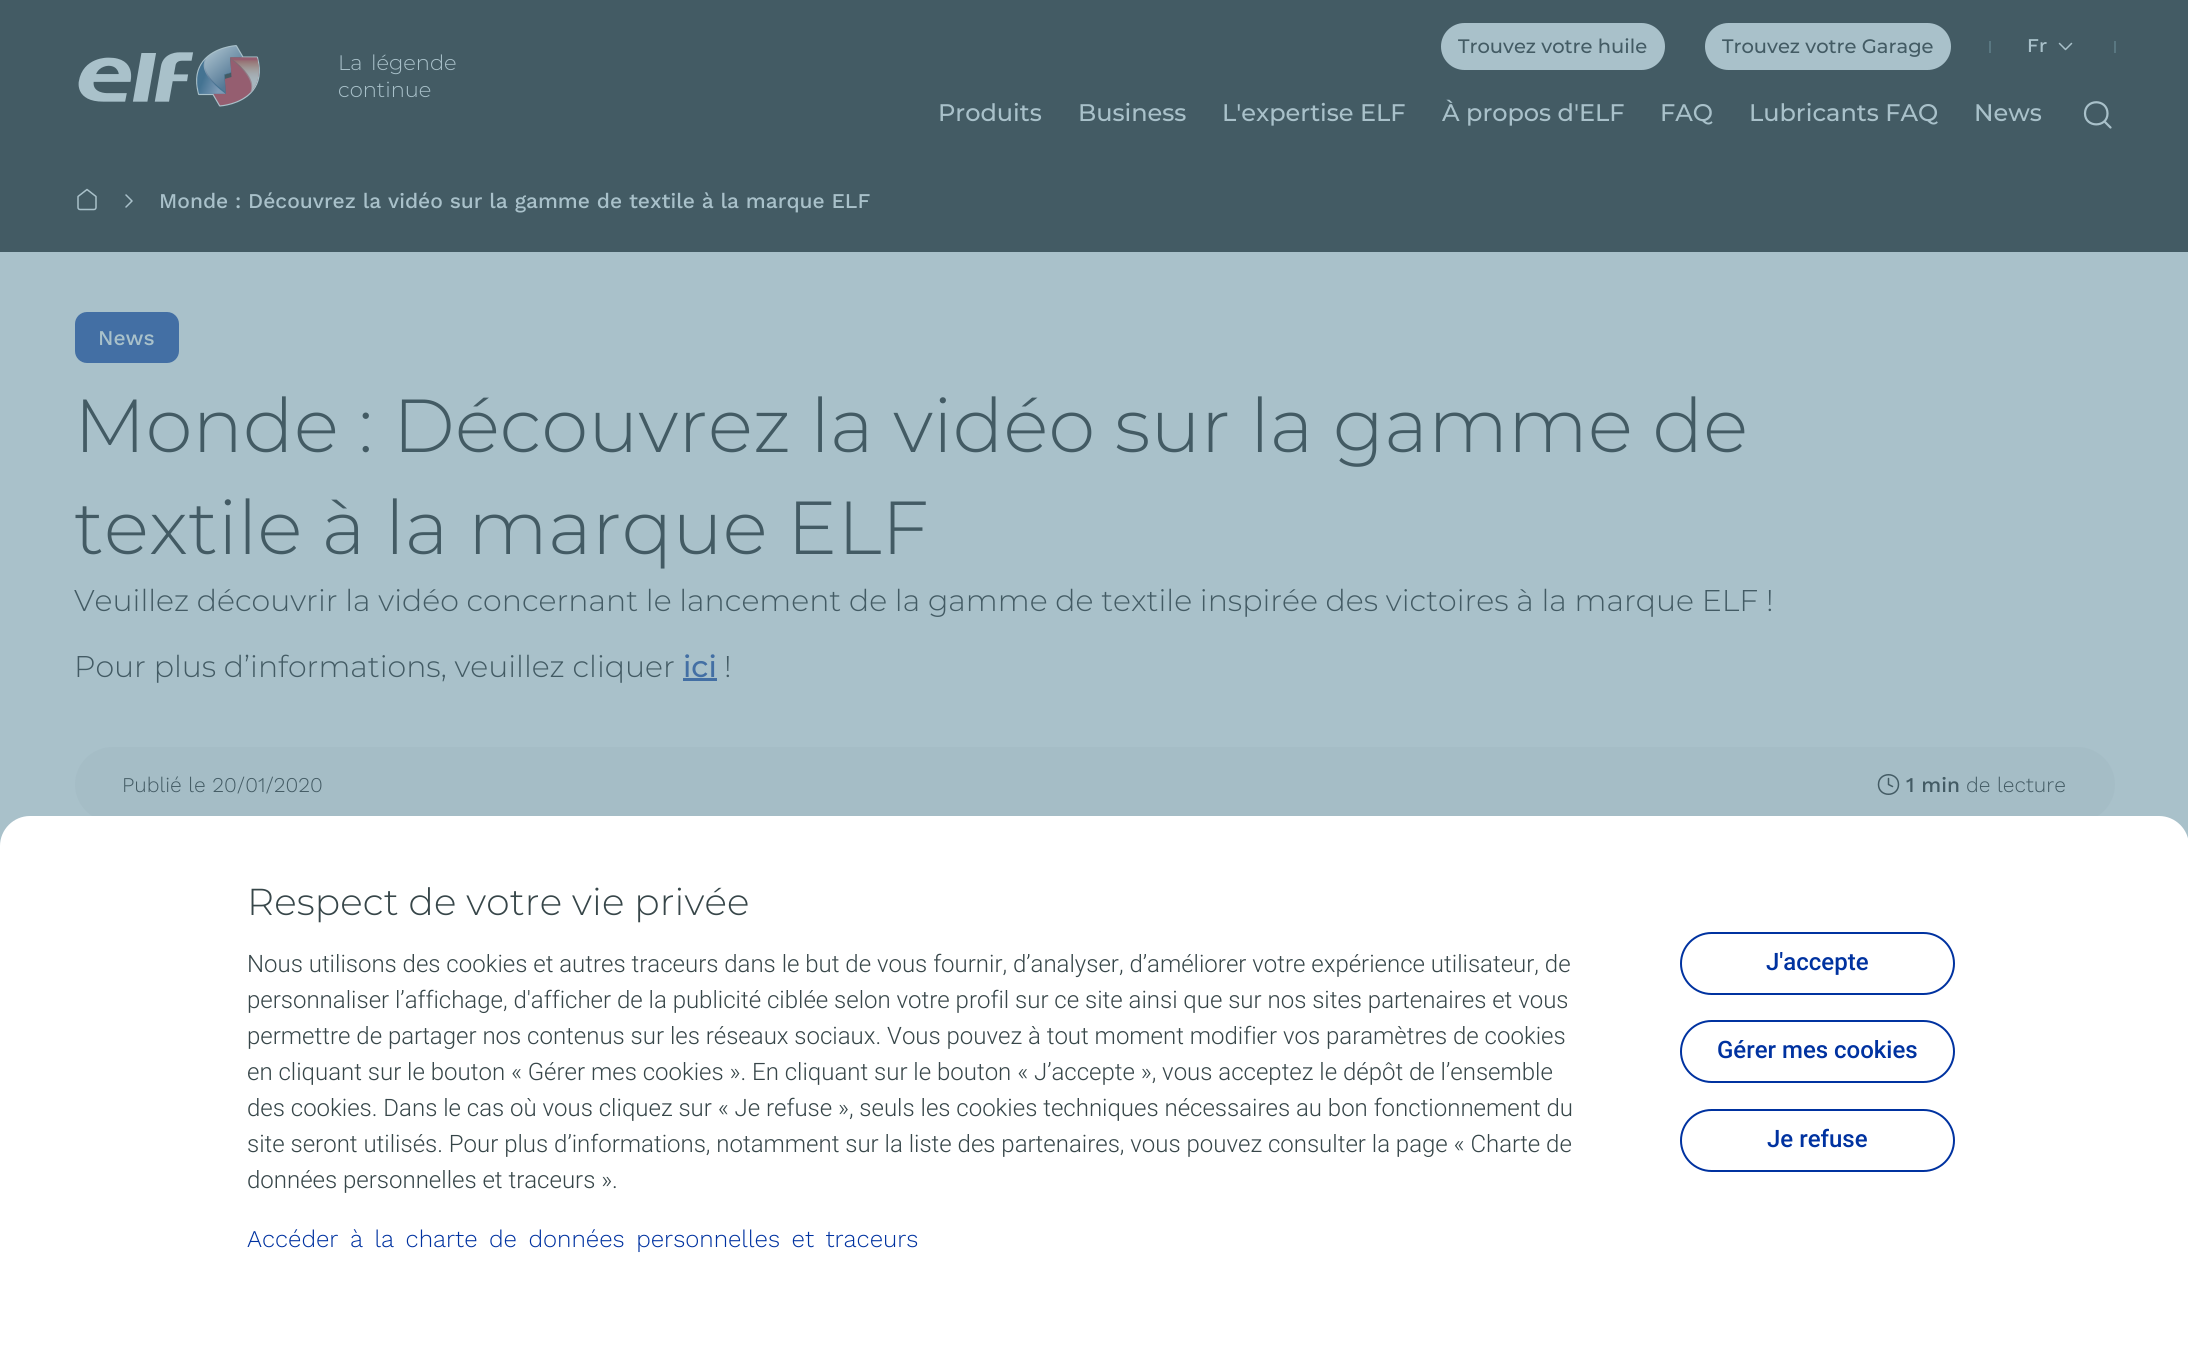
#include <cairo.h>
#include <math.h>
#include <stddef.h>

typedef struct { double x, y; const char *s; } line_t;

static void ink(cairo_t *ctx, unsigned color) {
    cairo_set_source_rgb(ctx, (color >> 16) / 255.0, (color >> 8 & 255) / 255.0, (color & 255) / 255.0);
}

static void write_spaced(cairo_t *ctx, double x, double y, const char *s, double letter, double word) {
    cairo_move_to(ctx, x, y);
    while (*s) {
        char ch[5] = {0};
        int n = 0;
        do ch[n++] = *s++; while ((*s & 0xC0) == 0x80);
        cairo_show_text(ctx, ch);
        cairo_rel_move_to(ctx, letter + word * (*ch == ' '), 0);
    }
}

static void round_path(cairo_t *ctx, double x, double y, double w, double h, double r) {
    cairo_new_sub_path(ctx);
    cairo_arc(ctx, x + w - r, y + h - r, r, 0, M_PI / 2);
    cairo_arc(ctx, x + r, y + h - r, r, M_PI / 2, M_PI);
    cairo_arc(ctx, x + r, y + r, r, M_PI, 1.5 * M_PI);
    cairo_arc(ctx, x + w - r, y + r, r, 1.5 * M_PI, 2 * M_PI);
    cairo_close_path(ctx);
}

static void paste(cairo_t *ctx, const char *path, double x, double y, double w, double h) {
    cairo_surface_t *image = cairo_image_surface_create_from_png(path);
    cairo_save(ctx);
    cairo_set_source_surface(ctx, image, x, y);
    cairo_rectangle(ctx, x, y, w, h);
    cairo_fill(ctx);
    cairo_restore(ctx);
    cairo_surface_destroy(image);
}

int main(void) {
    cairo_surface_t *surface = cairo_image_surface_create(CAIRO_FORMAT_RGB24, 2188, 1352);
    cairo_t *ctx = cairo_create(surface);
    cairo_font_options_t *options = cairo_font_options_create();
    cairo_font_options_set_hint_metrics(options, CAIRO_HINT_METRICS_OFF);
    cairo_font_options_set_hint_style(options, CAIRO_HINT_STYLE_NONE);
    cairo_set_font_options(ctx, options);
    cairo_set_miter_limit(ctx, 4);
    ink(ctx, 0xA9C1CA);
    cairo_paint(ctx);
    ink(ctx, 0x435B64);
    cairo_rectangle(ctx, 0, 0, 2188, 154);
    cairo_fill(ctx);
    paste(ctx, "media/1.png", 78, 45, 182, 62);
    cairo_select_font_face(ctx, "Montserrat Light", CAIRO_FONT_SLANT_NORMAL, CAIRO_FONT_WEIGHT_NORMAL);
    cairo_set_font_size(ctx, 21);
    ink(ctx, 0xA9C1CA);
    write_spaced(ctx, 338, 70, "La légende", 0, 3);
    cairo_move_to(ctx, 338, 97);
    cairo_show_text(ctx, "continue");
    round_path(ctx, 1440, 22, 226, 49, 24.5);
    cairo_fill_preserve(ctx);
    ink(ctx, 0x435B64);
    cairo_stroke(ctx);
    cairo_select_font_face(ctx, "Montserrat Medium", CAIRO_FONT_SLANT_NORMAL, CAIRO_FONT_WEIGHT_NORMAL);
    cairo_set_font_size(ctx, 19.5);
    cairo_move_to(ctx, 1458, 53);
    cairo_show_text(ctx, "Trouvez votre huile");
    ink(ctx, 0xA9C1CA);
    round_path(ctx, 1704, 22, 248, 49, 24.5);
    cairo_fill_preserve(ctx);
    ink(ctx, 0x435B64);
    cairo_stroke(ctx);
    cairo_move_to(ctx, 1722, 53);
    cairo_show_text(ctx, "Trouvez votre Garage");
    ink(ctx, 0x597781);
    cairo_rectangle(ctx, 1989, 41, 2, 12);
    cairo_fill(ctx);
    cairo_select_font_face(ctx, "Work Sans Medium", CAIRO_FONT_SLANT_NORMAL, CAIRO_FONT_WEIGHT_NORMAL);
    ink(ctx, 0xA9C1CA);
    cairo_move_to(ctx, 2027, 52);
    cairo_show_text(ctx, "Fr");
    cairo_new_path(ctx);
    cairo_move_to(ctx, 2059.5, 43.5);
    cairo_line_to(ctx, 2065.5, 49.5);
    cairo_line_to(ctx, 2071.5, 43.5);
    cairo_set_line_width(ctx, 1.5);
    cairo_set_line_cap(ctx, CAIRO_LINE_CAP_ROUND);
    cairo_set_line_join(ctx, CAIRO_LINE_JOIN_ROUND);
    cairo_stroke(ctx);
    ink(ctx, 0x597781);
    cairo_rectangle(ctx, 2114, 41, 2, 12);
    cairo_fill(ctx);
    cairo_select_font_face(ctx, "Montserrat Medium", CAIRO_FONT_SLANT_NORMAL, CAIRO_FONT_WEIGHT_NORMAL);
    cairo_set_font_size(ctx, 24);
    ink(ctx, 0xA9C1CA);
    {
        static const line_t items[] = {
            {938, 121, "Produits"},
            {1078, 121, "Business"},
            {1222, 121, "L'expertise ELF"},
            {1442, 121, "À propos d'ELF"},
            {1660, 121, "FAQ"},
            {1749, 121, "Lubricants FAQ"},
            {1974, 121, "News"},
        };
        for (size_t i = 0; i < sizeof items / sizeof *items; i++) {
            cairo_move_to(ctx, items[i].x, items[i].y);
            cairo_show_text(ctx, items[i].s);
        }
    }
    cairo_new_path(ctx);
    cairo_move_to(ctx, 2110.5, 127.5);
    cairo_line_to(ctx, 2104.5, 121.5);
    cairo_move_to(ctx, 2107.5, 113.5);
    cairo_curve_to(ctx, 2107.5, 128, 2085, 128, 2085, 113.5);
    cairo_curve_to(ctx, 2085, 98.5, 2107.5, 98.5, 2107.5, 113.5);
    cairo_close_path(ctx);
    cairo_set_line_width(ctx, 2.2);
    cairo_stroke(ctx);
    ink(ctx, 0x435B64);
    cairo_rectangle(ctx, 0, 154, 2188, 98);
    cairo_fill(ctx);
    paste(ctx, "media/2.png", 77, 188, 20, 23);
    cairo_new_path(ctx);
    cairo_move_to(ctx, 126, 207);
    cairo_line_to(ctx, 132, 201);
    cairo_line_to(ctx, 126, 195);
    ink(ctx, 0xA9C1CA);
    cairo_set_line_width(ctx, 1.5);
    cairo_stroke(ctx);
    cairo_select_font_face(ctx, "Work Sans Medium", CAIRO_FONT_SLANT_NORMAL, CAIRO_FONT_WEIGHT_NORMAL);
    cairo_set_font_size(ctx, 21);
    cairo_move_to(ctx, 159, 208);
    cairo_show_text(ctx, "Monde : Découvrez la vidéo sur la gamme de textile à la marque ELF");
    ink(ctx, 0x436FA4);
    round_path(ctx, 75, 312, 104, 51, 12);
    cairo_fill(ctx);
    ink(ctx, 0xA9C1CA);
    cairo_move_to(ctx, 98, 345);
    cairo_show_text(ctx, "News");
    cairo_select_font_face(ctx, "Montserrat Light", CAIRO_FONT_SLANT_NORMAL, CAIRO_FONT_WEIGHT_NORMAL);
    cairo_set_font_size(ctx, 75);
    ink(ctx, 0x435B64);
    write_spaced(ctx, 74, 452, "Monde : Découvrez la vidéo sur la gamme de", 0.15, 0);
    write_spaced(ctx, 74, 554, "textile à la marque ELF", 0.15, 0);
    cairo_set_font_size(ctx, 30);
    cairo_move_to(ctx, 74, 611);
    cairo_show_text(ctx, "Veuillez découvrir la vidéo concernant le lancement de la gamme de textile inspirée des victoires à la marque ELF !");
    cairo_move_to(ctx, 74, 677);
    cairo_show_text(ctx, "Pour plus d’informations, veuillez cliquer");
    cairo_select_font_face(ctx, "Montserrat Medium", CAIRO_FONT_SLANT_NORMAL, CAIRO_FONT_WEIGHT_NORMAL);
    ink(ctx, 0x436FA4);
    cairo_move_to(ctx, 683, 677);
    cairo_show_text(ctx, "ici");
    cairo_rectangle(ctx, 683, 678, 34, 3);
    cairo_fill(ctx);
    cairo_select_font_face(ctx, "Montserrat Light", CAIRO_FONT_SLANT_NORMAL, CAIRO_FONT_WEIGHT_NORMAL);
    ink(ctx, 0x435B64);
    cairo_move_to(ctx, 724, 677);
    cairo_show_text(ctx, "!");
    ink(ctx, 0xA5BDC6);
    round_path(ctx, 75, 747, 2040, 75, 37.5);
    cairo_fill(ctx);
    cairo_select_font_face(ctx, "Work Sans Light", CAIRO_FONT_SLANT_NORMAL, CAIRO_FONT_WEIGHT_NORMAL);
    cairo_set_font_size(ctx, 21);
    ink(ctx, 0x435B64);
    cairo_move_to(ctx, 122, 792);
    cairo_show_text(ctx, "Publié le 20/01/2020");
    cairo_new_path(ctx);
    cairo_move_to(ctx, 1888.5, 778.5);
    cairo_line_to(ctx, 1888.5, 784.5);
    cairo_line_to(ctx, 1892.5, 786.5);
    cairo_move_to(ctx, 1898.5, 784.5);
    cairo_curve_to(ctx, 1898.5, 797.5, 1878.5, 797.5, 1878.5, 784.5);
    cairo_curve_to(ctx, 1878.5, 771.5, 1898.5, 771.5, 1898.5, 784.5);
    cairo_close_path(ctx);
    cairo_stroke(ctx);
    cairo_select_font_face(ctx, "Work Sans Medium", CAIRO_FONT_SLANT_NORMAL, CAIRO_FONT_WEIGHT_NORMAL);
    cairo_move_to(ctx, 1906, 792);
    cairo_show_text(ctx, "1 min");
    cairo_select_font_face(ctx, "Work Sans Light", CAIRO_FONT_SLANT_NORMAL, CAIRO_FONT_WEIGHT_NORMAL);
    cairo_move_to(ctx, 1966, 792);
    cairo_show_text(ctx, "de lecture");
    ink(ctx, 0xFFFFFF);
    cairo_new_path(ctx);
    cairo_move_to(ctx, 30, 816);
    cairo_line_to(ctx, 2159, 816);
    cairo_curve_to(ctx, 2175.5, 816, 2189, 829.5, 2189, 846);
    cairo_line_to(ctx, 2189, 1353);
    cairo_line_to(ctx, 0, 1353);
    cairo_line_to(ctx, 0, 846);
    cairo_curve_to(ctx, 0, 829.5, 13.5, 816, 30, 816);
    cairo_close_path(ctx);
    cairo_fill(ctx);
    cairo_select_font_face(ctx, "Montserrat Light", CAIRO_FONT_SLANT_NORMAL, CAIRO_FONT_WEIGHT_NORMAL);
    cairo_set_font_size(ctx, 37.5);
    ink(ctx, 0x374649);
    write_spaced(ctx, 247, 915, "Respect de votre vie privée", 0.15, 0);
    cairo_select_font_face(ctx, "Roboto Light", CAIRO_FONT_SLANT_NORMAL, CAIRO_FONT_WEIGHT_NORMAL);
    cairo_set_font_size(ctx, 24);
    {
        static const line_t items[] = {
            {247, 972, "Nous utilisons des cookies et autres traceurs dans le but de vous fournir, d’analyser, d’améliorer votre expérience utilisateur, de"},
            {247, 1008, "personnaliser l’affichage, d'afficher de la publicité ciblée selon votre profil sur ce site ainsi que sur nos sites partenaires et vous"},
            {247, 1044, "permettre de partager nos contenus sur les réseaux sociaux. Vous pouvez à tout moment modifier vos paramètres de cookies"},
            {247, 1080, "en cliquant sur le bouton « Gérer mes cookies ». En cliquant sur le bouton « J’accepte », vous acceptez le dépôt de l’ensemble"},
            {247, 1116, "des cookies. Dans le cas où vous cliquez sur « Je refuse », seuls les cookies techniques nécessaires au bon fonctionnement du"},
            {247, 1152, "site seront utilisés. Pour plus d’informations, notamment sur la liste des partenaires, vous pouvez consulter la page « Charte de"},
            {247, 1188, "données personnelles et traceurs »."},
        };
        for (size_t i = 0; i < sizeof items / sizeof *items; i++) {
            cairo_move_to(ctx, items[i].x, items[i].y);
            cairo_show_text(ctx, items[i].s);
        }
    }
    round_path(ctx, 1681, 933, 273, 61, 30.5);
    ink(ctx, 0x0032A0);
    cairo_set_line_width(ctx, 2);
    cairo_set_line_cap(ctx, CAIRO_LINE_CAP_BUTT);
    cairo_set_line_join(ctx, CAIRO_LINE_JOIN_MITER);
    cairo_stroke(ctx);
    cairo_select_font_face(ctx, "Roboto Medium", CAIRO_FONT_SLANT_NORMAL, CAIRO_FONT_WEIGHT_NORMAL);
    cairo_move_to(ctx, 1766, 970);
    cairo_show_text(ctx, "J'accepte");
    round_path(ctx, 1681, 1021, 273, 61, 30.5);
    cairo_stroke(ctx);
    cairo_move_to(ctx, 1717, 1058);
    cairo_show_text(ctx, "Gérer mes cookies");
    round_path(ctx, 1681, 1110, 273, 61, 30.5);
    cairo_stroke(ctx);
    cairo_move_to(ctx, 1767, 1147);
    cairo_show_text(ctx, "Je refuse");
    cairo_select_font_face(ctx, "Work Sans Light", CAIRO_FONT_SLANT_NORMAL, CAIRO_FONT_WEIGHT_NORMAL);
    write_spaced(ctx, 247, 1247, "Accéder à la charte de données personnelles et traceurs", 0, 4);
    cairo_surface_write_to_png(surface, "image.png");
    cairo_font_options_destroy(options);
    cairo_destroy(ctx);
    cairo_surface_destroy(surface);
    return 0;
}
